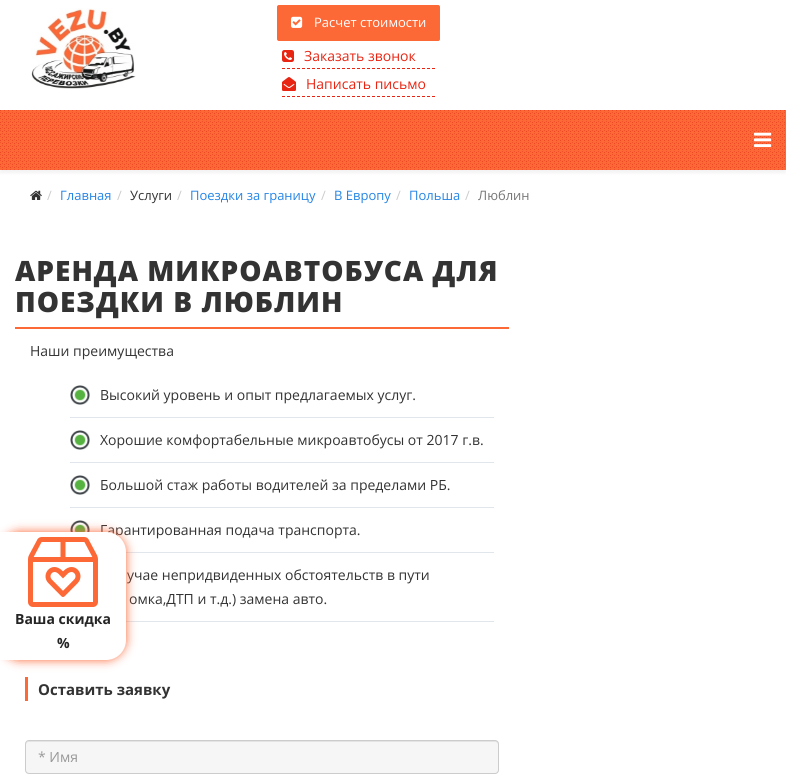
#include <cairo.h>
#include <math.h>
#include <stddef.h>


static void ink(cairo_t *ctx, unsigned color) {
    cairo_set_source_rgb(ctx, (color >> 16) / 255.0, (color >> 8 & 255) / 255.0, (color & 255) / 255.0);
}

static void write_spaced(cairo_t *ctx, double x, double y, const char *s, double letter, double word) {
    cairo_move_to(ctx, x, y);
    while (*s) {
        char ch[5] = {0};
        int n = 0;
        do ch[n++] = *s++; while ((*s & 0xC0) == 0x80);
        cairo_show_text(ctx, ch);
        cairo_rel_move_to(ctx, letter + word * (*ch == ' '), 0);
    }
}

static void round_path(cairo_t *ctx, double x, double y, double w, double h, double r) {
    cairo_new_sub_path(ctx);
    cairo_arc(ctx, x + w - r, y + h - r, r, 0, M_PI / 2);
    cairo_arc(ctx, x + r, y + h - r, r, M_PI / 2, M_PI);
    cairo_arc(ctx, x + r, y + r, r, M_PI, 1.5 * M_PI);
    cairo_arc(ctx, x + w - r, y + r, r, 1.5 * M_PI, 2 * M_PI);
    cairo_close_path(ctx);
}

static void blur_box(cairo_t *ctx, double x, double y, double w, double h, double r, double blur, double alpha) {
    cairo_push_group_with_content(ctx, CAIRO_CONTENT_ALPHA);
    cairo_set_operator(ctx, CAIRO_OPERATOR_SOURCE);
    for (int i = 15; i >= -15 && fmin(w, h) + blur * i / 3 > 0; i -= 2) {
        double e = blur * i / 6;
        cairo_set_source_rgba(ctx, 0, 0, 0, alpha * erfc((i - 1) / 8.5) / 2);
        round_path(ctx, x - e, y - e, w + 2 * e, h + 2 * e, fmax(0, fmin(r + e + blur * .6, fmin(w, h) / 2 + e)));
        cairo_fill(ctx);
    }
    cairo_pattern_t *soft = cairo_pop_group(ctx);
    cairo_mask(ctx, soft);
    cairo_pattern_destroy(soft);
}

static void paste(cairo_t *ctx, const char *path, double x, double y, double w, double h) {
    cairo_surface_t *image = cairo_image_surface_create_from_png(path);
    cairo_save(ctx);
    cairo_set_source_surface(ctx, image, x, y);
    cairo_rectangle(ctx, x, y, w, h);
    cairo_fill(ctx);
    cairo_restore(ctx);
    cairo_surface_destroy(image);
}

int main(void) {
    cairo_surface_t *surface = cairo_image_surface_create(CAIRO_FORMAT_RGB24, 786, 777);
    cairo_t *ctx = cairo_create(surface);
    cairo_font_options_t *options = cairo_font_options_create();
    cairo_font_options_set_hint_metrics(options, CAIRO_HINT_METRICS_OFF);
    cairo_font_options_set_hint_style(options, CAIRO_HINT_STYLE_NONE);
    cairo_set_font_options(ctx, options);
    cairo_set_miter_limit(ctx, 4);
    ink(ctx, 0xFFFFFF);
    cairo_paint(ctx);
    paste(ctx, "media/1.png", 31, 8, 105, 81);
    ink(ctx, 0xFD6837);
    round_path(ctx, 277.5, 5.5, 162, 35, 1.5);
    cairo_fill_preserve(ctx);
    cairo_set_line_width(ctx, 1);
    cairo_stroke(ctx);
    paste(ctx, "media/2.png", 291, 16, 12, 12);
    cairo_select_font_face(ctx, "Open Sans", CAIRO_FONT_SLANT_NORMAL, CAIRO_FONT_WEIGHT_NORMAL);
    cairo_set_font_size(ctx, 13);
    ink(ctx, 0xFFFFFF);
    cairo_move_to(ctx, 314, 27);
    cairo_show_text(ctx, "Расчет стоимости");
    cairo_new_path(ctx);
    cairo_move_to(ctx, 282, 68.5);
    cairo_line_to(ctx, 435, 68.5);
    ink(ctx, 0xE82513);
    cairo_set_dash(ctx, (double[]){3, 2}, 2, 0);
    cairo_stroke(ctx);
    paste(ctx, "media/3.png", 282, 50, 12, 12);
    cairo_set_font_size(ctx, 14);
    cairo_move_to(ctx, 304, 61);
    cairo_show_text(ctx, "Заказать звонок");
    cairo_new_path(ctx);
    cairo_move_to(ctx, 282, 96.5);
    cairo_line_to(ctx, 435, 96.5);
    cairo_stroke(ctx);
    paste(ctx, "media/4.png", 282, 77, 14, 14);
    cairo_move_to(ctx, 306, 89);
    cairo_show_text(ctx, "Написать письмо");
    ink(ctx, 0x000000);
    blur_box(ctx, 0, 113, 786, 60, 0, 1.5, 0.05);
    paste(ctx, "media/5.png", 0, 110, 786, 60);
    paste(ctx, "media/6.png", 754, 132, 18, 15);
    paste(ctx, "media/7.png", 30, 190, 12, 10);
    cairo_set_font_size(ctx, 13);
    ink(ctx, 0xCCCCCC);
    cairo_move_to(ctx, 47, 200);
    cairo_show_text(ctx, "/");
    ink(ctx, 0x2585E5);
    cairo_move_to(ctx, 60, 200);
    cairo_show_text(ctx, "Главная");
    ink(ctx, 0xCCCCCC);
    cairo_move_to(ctx, 117, 200);
    cairo_show_text(ctx, "/");
    ink(ctx, 0x333333);
    cairo_move_to(ctx, 130, 200);
    cairo_show_text(ctx, "Услуги");
    ink(ctx, 0xCCCCCC);
    cairo_move_to(ctx, 177, 200);
    cairo_show_text(ctx, "/");
    ink(ctx, 0x2585E5);
    cairo_move_to(ctx, 190, 200);
    cairo_show_text(ctx, "Поездки за границу");
    ink(ctx, 0xCCCCCC);
    cairo_move_to(ctx, 321, 200);
    cairo_show_text(ctx, "/");
    ink(ctx, 0x2585E5);
    cairo_move_to(ctx, 334, 200);
    cairo_show_text(ctx, "В Европу");
    ink(ctx, 0xCCCCCC);
    cairo_move_to(ctx, 396, 200);
    cairo_show_text(ctx, "/");
    ink(ctx, 0x2585E5);
    cairo_move_to(ctx, 409, 200);
    cairo_show_text(ctx, "Польша");
    ink(ctx, 0xCCCCCC);
    cairo_move_to(ctx, 465, 200);
    cairo_show_text(ctx, "/");
    ink(ctx, 0x777777);
    cairo_move_to(ctx, 478, 200);
    cairo_show_text(ctx, "Люблин");
    ink(ctx, 0xFD6837);
    cairo_rectangle(ctx, 15, 327, 494, 2);
    cairo_fill(ctx);
    cairo_select_font_face(ctx, "Open Sans ExtraBold", CAIRO_FONT_SLANT_NORMAL, CAIRO_FONT_WEIGHT_NORMAL);
    cairo_set_font_size(ctx, 28);
    ink(ctx, 0x333333);
    write_spaced(ctx, 15, 281, "АРЕНДА МИКРОАВТОБУСА ДЛЯ", 1, 0);
    write_spaced(ctx, 15, 312, "ПОЕЗДКИ В ЛЮБЛИН", 1, 0);
    cairo_select_font_face(ctx, "Open Sans", CAIRO_FONT_SLANT_NORMAL, CAIRO_FONT_WEIGHT_NORMAL);
    cairo_set_font_size(ctx, 14);
    cairo_move_to(ctx, 30, 356);
    cairo_show_text(ctx, "Наши преимущества");
    paste(ctx, "media/8.png", 70, 385, 20, 20);
    ink(ctx, 0xE1E6EC);
    cairo_rectangle(ctx, 70, 417, 424, 1);
    cairo_fill(ctx);
    ink(ctx, 0x333333);
    cairo_move_to(ctx, 100, 400);
    cairo_show_text(ctx, "Высокий уровень и опыт предлагаемых услуг.");
    paste(ctx, "media/8.png", 70, 430, 20, 20);
    ink(ctx, 0xE1E6EC);
    cairo_rectangle(ctx, 70, 462, 424, 1);
    cairo_fill(ctx);
    ink(ctx, 0x333333);
    cairo_move_to(ctx, 100, 445);
    cairo_show_text(ctx, "Хорошие комфортабельные микроавтобусы от 2017 г.в.");
    paste(ctx, "media/9.png", 70, 475, 20, 20);
    ink(ctx, 0xE1E6EC);
    cairo_rectangle(ctx, 70, 507, 424, 1);
    cairo_fill(ctx);
    ink(ctx, 0x333333);
    cairo_move_to(ctx, 100, 490);
    cairo_show_text(ctx, "Большой стаж работы водителей за пределами РБ.");
    paste(ctx, "media/10.png", 70, 520, 20, 12);
    ink(ctx, 0xE1E6EC);
    cairo_rectangle(ctx, 126, 552, 368, 1);
    cairo_fill(ctx);
    ink(ctx, 0x333333);
    cairo_move_to(ctx, 100, 535);
    cairo_show_text(ctx, "Гарантированная подача транспорта.");
    ink(ctx, 0xE1E6EC);
    cairo_rectangle(ctx, 126, 621, 368, 1);
    cairo_fill(ctx);
    ink(ctx, 0x333333);
    cairo_move_to(ctx, 127, 580);
    cairo_show_text(ctx, "учае непридвиденных обстоятельств в пути");
    cairo_move_to(ctx, 129, 604);
    cairo_show_text(ctx, "омка,ДТП и т.д.) замена авто.");
    ink(ctx, 0xFD6837);
    cairo_rectangle(ctx, 25, 677, 3, 24);
    cairo_fill(ctx);
    cairo_select_font_face(ctx, "Open Sans", CAIRO_FONT_SLANT_NORMAL, CAIRO_FONT_WEIGHT_BOLD);
    cairo_set_font_size(ctx, 15);
    ink(ctx, 0x333333);
    cairo_move_to(ctx, 38, 695);
    cairo_show_text(ctx, "Оставить заявку");
    ink(ctx, 0xF6F6F7);
    round_path(ctx, 25, 740, 474, 34, 4);
    cairo_fill(ctx);
    ink(ctx, 0xE4E4E4);
    cairo_new_path(ctx);
    cairo_move_to(ctx, 29, 742);
    cairo_line_to(ctx, 495, 742);
    cairo_curve_to(ctx, 497, 742, 498, 743, 498, 745);
    cairo_curve_to(ctx, 498, 743, 498, 741, 496, 741);
    cairo_line_to(ctx, 28, 741);
    cairo_line_to(ctx, 26, 743);
    cairo_line_to(ctx, 26, 745);
    cairo_curve_to(ctx, 26, 743, 27, 742, 29, 742);
    cairo_close_path(ctx);
    cairo_fill(ctx);
    round_path(ctx, 25.5, 740.5, 473, 33, 3.5);
    ink(ctx, 0xCCCCCC);
    cairo_set_dash(ctx, NULL, 0, 0);
    cairo_stroke(ctx);
    cairo_select_font_face(ctx, "Open Sans", CAIRO_FONT_SLANT_NORMAL, CAIRO_FONT_WEIGHT_NORMAL);
    cairo_set_font_size(ctx, 14);
    ink(ctx, 0x999999);
    cairo_move_to(ctx, 38, 762);
    cairo_show_text(ctx, "* Имя");
    ink(ctx, 0xFD6837);
    blur_box(ctx, 0, 532, 126, 128, 20, 5, 1);
    ink(ctx, 0xFFFFFF);
    cairo_new_path(ctx);
    cairo_move_to(ctx, 0, 532);
    cairo_line_to(ctx, 106, 532);
    cairo_curve_to(ctx, 117, 532, 126, 541, 126, 552);
    cairo_line_to(ctx, 126, 640);
    cairo_curve_to(ctx, 126, 651, 117, 660, 106, 660);
    cairo_line_to(ctx, 0, 660);
    cairo_close_path(ctx);
    cairo_fill(ctx);
    paste(ctx, "media/11.png", 28, 537, 70, 70);
    cairo_select_font_face(ctx, "Open Sans", CAIRO_FONT_SLANT_NORMAL, CAIRO_FONT_WEIGHT_BOLD);
    ink(ctx, 0x252525);
    cairo_move_to(ctx, 15, 624);
    cairo_show_text(ctx, "Ваша скидка");
    cairo_move_to(ctx, 57, 648);
    cairo_show_text(ctx, "%");
    cairo_surface_write_to_png(surface, "image.png");
    cairo_font_options_destroy(options);
    cairo_destroy(ctx);
    cairo_surface_destroy(surface);
    return 0;
}
